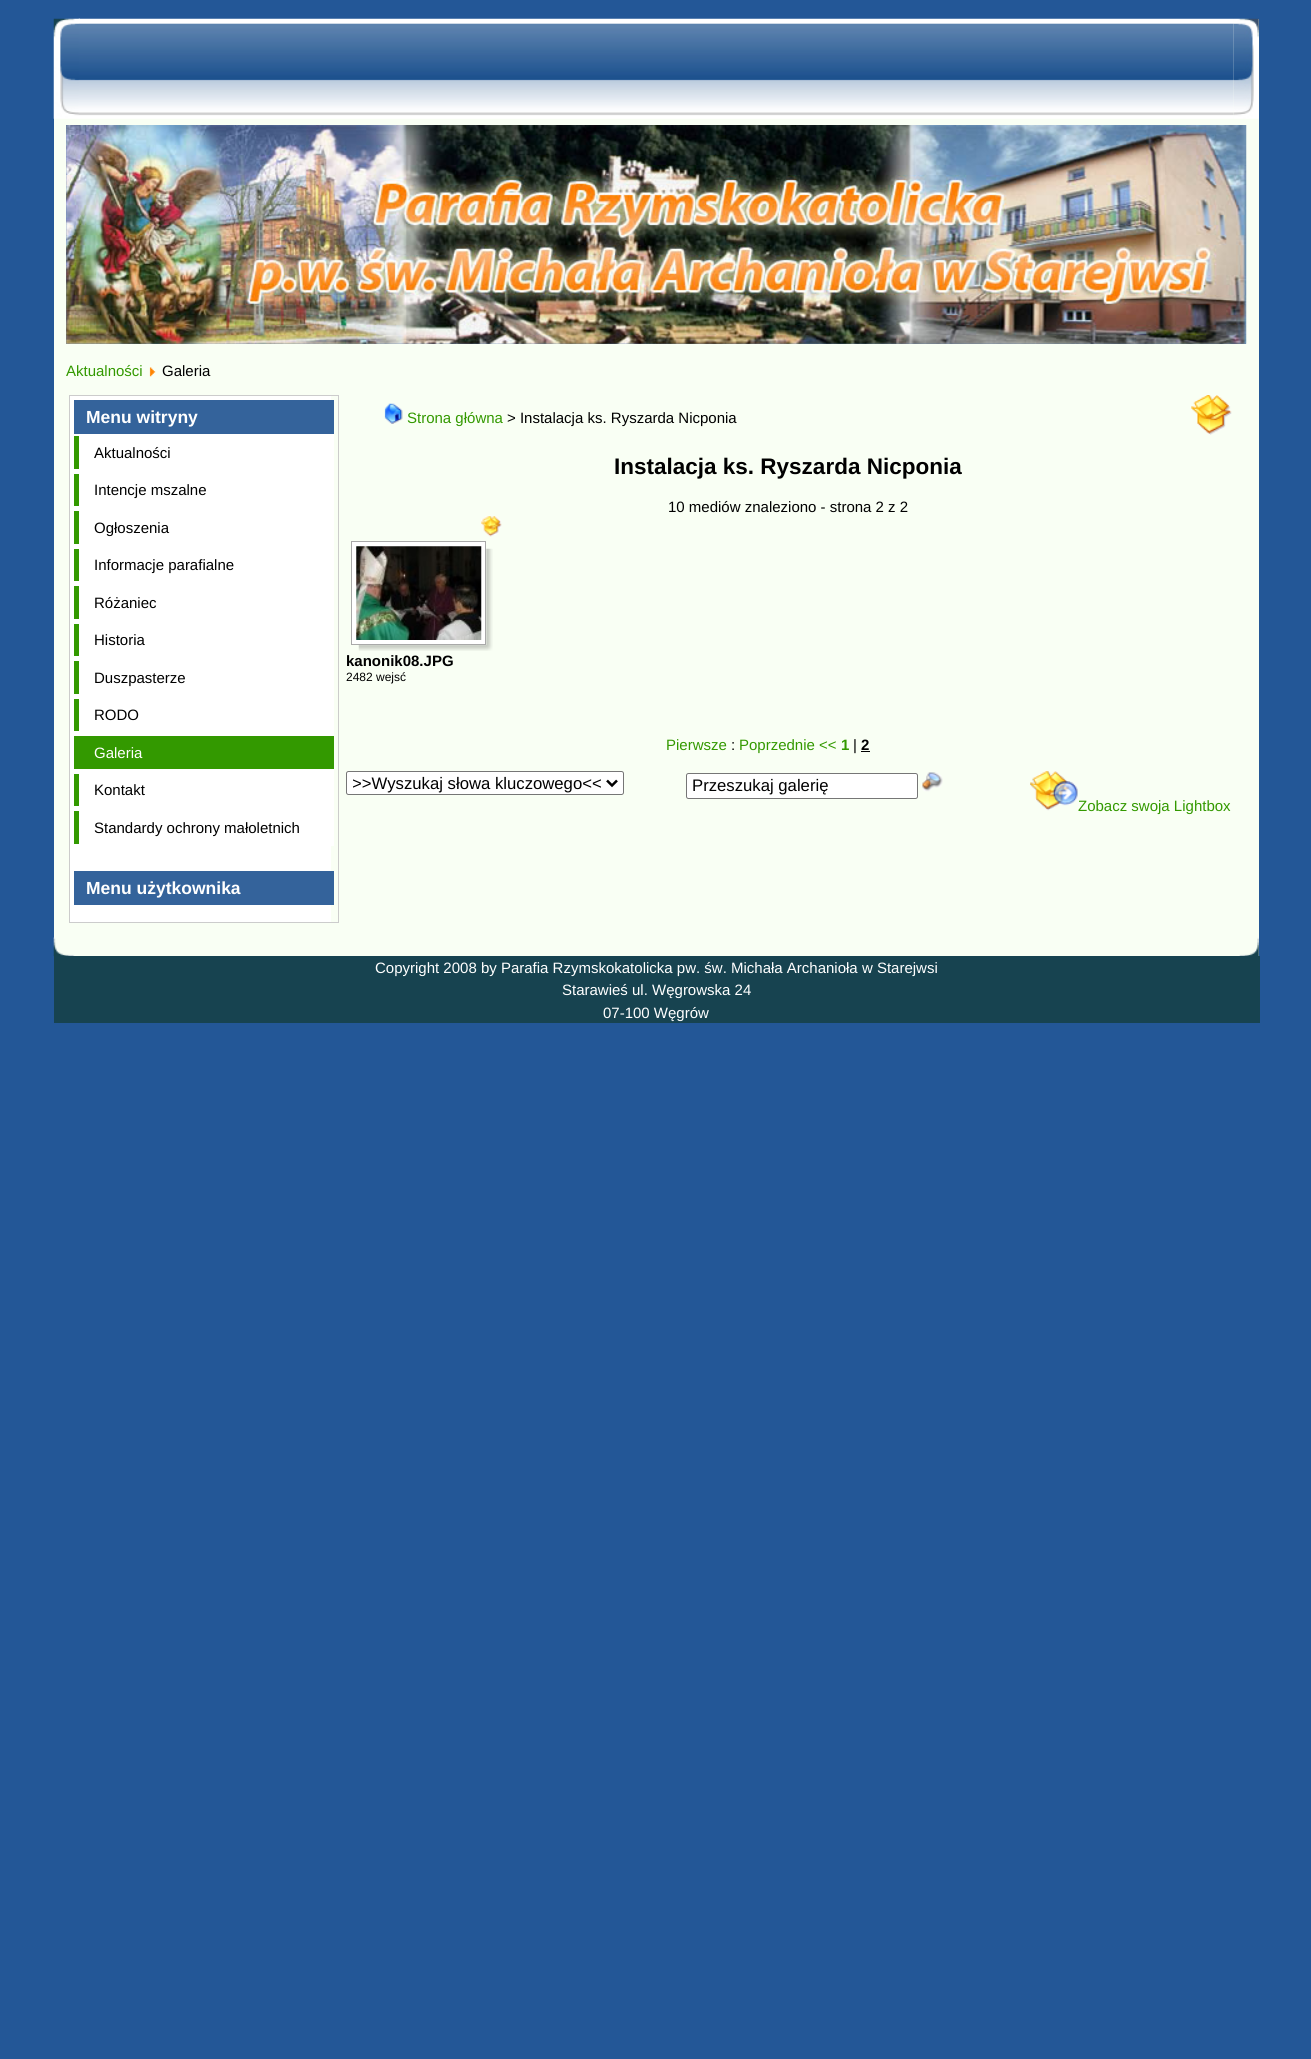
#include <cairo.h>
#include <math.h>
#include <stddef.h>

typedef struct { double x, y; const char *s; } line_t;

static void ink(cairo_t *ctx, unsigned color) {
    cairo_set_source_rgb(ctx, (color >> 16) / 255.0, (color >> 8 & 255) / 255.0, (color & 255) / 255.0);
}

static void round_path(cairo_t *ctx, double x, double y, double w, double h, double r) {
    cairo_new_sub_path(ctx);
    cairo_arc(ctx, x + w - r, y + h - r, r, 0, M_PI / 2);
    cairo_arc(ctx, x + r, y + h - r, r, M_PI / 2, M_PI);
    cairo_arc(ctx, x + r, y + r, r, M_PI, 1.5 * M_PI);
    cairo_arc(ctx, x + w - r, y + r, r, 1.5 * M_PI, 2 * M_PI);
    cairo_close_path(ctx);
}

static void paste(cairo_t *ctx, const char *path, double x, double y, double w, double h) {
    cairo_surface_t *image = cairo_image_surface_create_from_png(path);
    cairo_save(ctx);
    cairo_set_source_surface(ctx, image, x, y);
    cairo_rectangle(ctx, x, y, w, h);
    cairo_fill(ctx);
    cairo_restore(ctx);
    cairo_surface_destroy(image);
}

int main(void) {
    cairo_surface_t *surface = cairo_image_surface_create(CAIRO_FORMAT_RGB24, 1311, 2059);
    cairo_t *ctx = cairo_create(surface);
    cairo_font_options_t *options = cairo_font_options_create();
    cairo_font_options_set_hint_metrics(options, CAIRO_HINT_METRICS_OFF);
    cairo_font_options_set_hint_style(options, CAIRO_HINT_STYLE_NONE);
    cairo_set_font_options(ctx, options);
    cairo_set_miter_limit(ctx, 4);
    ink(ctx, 0x235797);
    cairo_paint(ctx);
    ink(ctx, 0xF9FFF4);
    cairo_rectangle(ctx, 54, 19, 1205, 937);
    cairo_fill(ctx);
    paste(ctx, "media/1.png", 53, 18, 27, 101);
    paste(ctx, "media/2.png", 1233, 18, 26, 101);
    paste(ctx, "media/3.png", 78, 18, 1156, 101);
    ink(ctx, 0x597FAC);
    cairo_rectangle(ctx, 66, 125, 1180, 219);
    cairo_fill(ctx);
    paste(ctx, "media/4.png", 66, 125, 1181, 219);
    cairo_select_font_face(ctx, "Liberation Sans", CAIRO_FONT_SLANT_NORMAL, CAIRO_FONT_WEIGHT_NORMAL);
    cairo_set_font_size(ctx, 15);
    ink(ctx, 0x339900);
    cairo_move_to(ctx, 66, 376);
    cairo_show_text(ctx, "Aktualności");
    paste(ctx, "media/5.png", 149, 367, 7, 10);
    ink(ctx, 0x000000);
    cairo_move_to(ctx, 162, 376);
    cairo_show_text(ctx, "Galeria");
    ink(ctx, 0xFFFFFF);
    cairo_rectangle(ctx, 70, 396, 261, 526);
    cairo_fill(ctx);
    cairo_rectangle(ctx, 69.5, 395.5, 269, 527);
    ink(ctx, 0xCCCCCC);
    cairo_set_line_width(ctx, 1);
    cairo_stroke(ctx);
    ink(ctx, 0xFFFFFF);
    cairo_rectangle(ctx, 331, 434, 3, 412);
    cairo_fill(ctx);
    ink(ctx, 0x34639B);
    cairo_rectangle(ctx, 74, 400, 260, 34);
    cairo_fill(ctx);
    cairo_select_font_face(ctx, "Liberation Sans", CAIRO_FONT_SLANT_NORMAL, CAIRO_FONT_WEIGHT_BOLD);
    cairo_set_font_size(ctx, 17.5);
    ink(ctx, 0xFFFFFF);
    cairo_move_to(ctx, 86, 423);
    cairo_show_text(ctx, "Menu witryny");
    ink(ctx, 0x339900);
    cairo_rectangle(ctx, 74, 436, 5, 33);
    cairo_fill(ctx);
    cairo_select_font_face(ctx, "Liberation Sans", CAIRO_FONT_SLANT_NORMAL, CAIRO_FONT_WEIGHT_NORMAL);
    cairo_set_font_size(ctx, 15);
    ink(ctx, 0x000000);
    cairo_move_to(ctx, 94, 458);
    cairo_show_text(ctx, "Aktualności");
    ink(ctx, 0x339900);
    cairo_rectangle(ctx, 74, 474, 5, 32);
    cairo_fill(ctx);
    ink(ctx, 0x000000);
    cairo_move_to(ctx, 94, 495);
    cairo_show_text(ctx, "Intencje mszalne");
    ink(ctx, 0x339900);
    cairo_rectangle(ctx, 74, 511, 5, 33);
    cairo_fill(ctx);
    ink(ctx, 0x000000);
    cairo_move_to(ctx, 94, 533);
    cairo_show_text(ctx, "Ogłoszenia");
    ink(ctx, 0x339900);
    cairo_rectangle(ctx, 74, 549, 5, 32);
    cairo_fill(ctx);
    ink(ctx, 0x000000);
    cairo_move_to(ctx, 94, 570);
    cairo_show_text(ctx, "Informacje parafialne");
    ink(ctx, 0x339900);
    cairo_rectangle(ctx, 74, 586, 5, 33);
    cairo_fill(ctx);
    ink(ctx, 0x000000);
    cairo_move_to(ctx, 94, 608);
    cairo_show_text(ctx, "Różaniec");
    ink(ctx, 0x339900);
    cairo_rectangle(ctx, 74, 624, 5, 32);
    cairo_fill(ctx);
    ink(ctx, 0x000000);
    cairo_move_to(ctx, 94, 645);
    cairo_show_text(ctx, "Historia");
    ink(ctx, 0x339900);
    cairo_rectangle(ctx, 74, 661, 5, 33);
    cairo_fill(ctx);
    ink(ctx, 0x000000);
    cairo_move_to(ctx, 94, 683);
    cairo_show_text(ctx, "Duszpasterze");
    ink(ctx, 0x339900);
    cairo_rectangle(ctx, 74, 699, 5, 32);
    cairo_fill(ctx);
    ink(ctx, 0x000000);
    cairo_move_to(ctx, 94, 720);
    cairo_show_text(ctx, "RODO");
    ink(ctx, 0x339900);
    cairo_rectangle(ctx, 74, 736, 260, 33);
    cairo_fill(ctx);
    ink(ctx, 0xFFFFFF);
    cairo_move_to(ctx, 94, 758);
    cairo_show_text(ctx, "Galeria");
    ink(ctx, 0x339900);
    cairo_rectangle(ctx, 74, 774, 5, 32);
    cairo_fill(ctx);
    ink(ctx, 0x000000);
    cairo_move_to(ctx, 94, 795);
    cairo_show_text(ctx, "Kontakt");
    ink(ctx, 0x339900);
    cairo_rectangle(ctx, 74, 811, 5, 33);
    cairo_fill(ctx);
    ink(ctx, 0x000000);
    cairo_move_to(ctx, 94, 833);
    cairo_show_text(ctx, "Standardy ochrony małoletnich");
    ink(ctx, 0x34639B);
    cairo_rectangle(ctx, 74, 871, 260, 34);
    cairo_fill(ctx);
    cairo_select_font_face(ctx, "Liberation Sans", CAIRO_FONT_SLANT_NORMAL, CAIRO_FONT_WEIGHT_BOLD);
    cairo_set_font_size(ctx, 17.5);
    ink(ctx, 0xFFFFFF);
    cairo_move_to(ctx, 86, 894);
    cairo_show_text(ctx, "Menu użytkownika");
    paste(ctx, "media/6.png", 384, 403, 19, 21);
    cairo_select_font_face(ctx, "Liberation Sans", CAIRO_FONT_SLANT_NORMAL, CAIRO_FONT_WEIGHT_NORMAL);
    cairo_set_font_size(ctx, 15);
    ink(ctx, 0x339900);
    cairo_move_to(ctx, 407, 423);
    cairo_show_text(ctx, "Strona główna");
    ink(ctx, 0x000000);
    cairo_move_to(ctx, 507, 423);
    cairo_show_text(ctx, "> Instalacja ks. Ryszarda Nicponia");
    paste(ctx, "media/7.png", 1191, 395, 41, 40);
    cairo_select_font_face(ctx, "Liberation Sans", CAIRO_FONT_SLANT_NORMAL, CAIRO_FONT_WEIGHT_BOLD);
    cairo_set_font_size(ctx, 22.5);
    cairo_move_to(ctx, 614, 474);
    cairo_show_text(ctx, "Instalacja ks. Ryszarda Nicponia");
    cairo_select_font_face(ctx, "Liberation Sans", CAIRO_FONT_SLANT_NORMAL, CAIRO_FONT_WEIGHT_NORMAL);
    cairo_set_font_size(ctx, 15);
    cairo_move_to(ctx, 668, 512);
    cairo_show_text(ctx, "10 mediów znaleziono - strona 2 z 2");
    paste(ctx, "media/8.png", 481, 516, 21, 21);
    paste(ctx, "media/9.png", 358, 548, 135, 103);
    ink(ctx, 0xFFFFFF);
    cairo_rectangle(ctx, 351.5, 541.5, 134, 103);
    cairo_fill_preserve(ctx);
    ink(ctx, 0xA9A9A9);
    cairo_stroke(ctx);
    paste(ctx, "media/10.png", 356, 546, 126, 94);
    cairo_select_font_face(ctx, "Liberation Sans", CAIRO_FONT_SLANT_NORMAL, CAIRO_FONT_WEIGHT_BOLD);
    ink(ctx, 0x000000);
    cairo_move_to(ctx, 346, 666);
    cairo_show_text(ctx, "kanonik08.JPG");
    cairo_select_font_face(ctx, "Liberation Sans", CAIRO_FONT_SLANT_NORMAL, CAIRO_FONT_WEIGHT_NORMAL);
    cairo_set_font_size(ctx, 12);
    cairo_move_to(ctx, 346, 681);
    cairo_show_text(ctx, "2482 wejsć");
    cairo_set_font_size(ctx, 15);
    ink(ctx, 0x339900);
    cairo_move_to(ctx, 666, 750);
    cairo_show_text(ctx, "Pierwsze");
    ink(ctx, 0x000000);
    cairo_move_to(ctx, 731, 750);
    cairo_show_text(ctx, ":");
    ink(ctx, 0x339900);
    cairo_move_to(ctx, 739, 750);
    cairo_show_text(ctx, "Poprzednie <<");
    cairo_select_font_face(ctx, "Liberation Sans", CAIRO_FONT_SLANT_NORMAL, CAIRO_FONT_WEIGHT_BOLD);
    cairo_move_to(ctx, 841, 750);
    cairo_show_text(ctx, "1");
    cairo_select_font_face(ctx, "Liberation Sans", CAIRO_FONT_SLANT_NORMAL, CAIRO_FONT_WEIGHT_NORMAL);
    ink(ctx, 0x000000);
    cairo_move_to(ctx, 853, 750);
    cairo_show_text(ctx, "|");
    cairo_select_font_face(ctx, "Liberation Sans", CAIRO_FONT_SLANT_NORMAL, CAIRO_FONT_WEIGHT_BOLD);
    cairo_move_to(ctx, 861, 750);
    cairo_show_text(ctx, "2");
    cairo_rectangle(ctx, 861, 751, 9, 1);
    cairo_fill(ctx);
    ink(ctx, 0xFFFFFF);
    round_path(ctx, 346.5, 771.5, 277, 23, 2);
    cairo_fill_preserve(ctx);
    ink(ctx, 0x767676);
    cairo_stroke(ctx);
    cairo_new_path(ctx);
    cairo_move_to(ctx, 607, 780.5);
    cairo_line_to(ctx, 612, 785.5);
    cairo_line_to(ctx, 617, 780.5);
    ink(ctx, 0x000000);
    cairo_set_line_width(ctx, 2.5);
    cairo_stroke(ctx);
    cairo_save(ctx);
    cairo_rectangle(ctx, 353, 773, 250, 21);
    cairo_clip(ctx);
    cairo_select_font_face(ctx, "Liberation Sans", CAIRO_FONT_SLANT_NORMAL, CAIRO_FONT_WEIGHT_NORMAL);
    cairo_set_font_size(ctx, 16.7);
    cairo_move_to(ctx, 352, 789);
    cairo_show_text(ctx, ">>Wyszukaj słowa kluczowego<<");
    cairo_restore(ctx);
    ink(ctx, 0xFFFFFF);
    round_path(ctx, 686.5, 773.5, 231, 25, 2);
    cairo_fill_preserve(ctx);
    ink(ctx, 0x767676);
    cairo_set_line_width(ctx, 1);
    cairo_stroke(ctx);
    cairo_select_font_face(ctx, "Liberation Sans", CAIRO_FONT_SLANT_NORMAL, CAIRO_FONT_WEIGHT_NORMAL);
    cairo_set_font_size(ctx, 16.7);
    ink(ctx, 0x000000);
    cairo_move_to(ctx, 692, 791);
    cairo_show_text(ctx, "Przeszukaj galerię");
    paste(ctx, "media/11.png", 922, 772, 21, 20);
    paste(ctx, "media/12.png", 1030, 771, 48, 40);
    cairo_set_font_size(ctx, 15);
    ink(ctx, 0x339900);
    cairo_move_to(ctx, 1078, 811);
    cairo_show_text(ctx, "Zobacz swoja Lightbox");
    paste(ctx, "media/13.png", 53, 937, 22, 20);
    paste(ctx, "media/14.png", 1239, 937, 20, 19);
    ink(ctx, 0x174350);
    cairo_rectangle(ctx, 54, 956, 1206, 67);
    cairo_fill(ctx);
    ink(ctx, 0xFFFFFF);
    {
        static const line_t items[] = {
            {375, 973, "Copyright 2008 by Parafia Rzymskokatolicka pw. św. Michała Archanioła w Starejwsi"},
            {562, 995, "Starawieś ul. Węgrowska 24"},
            {603, 1018, "07-100 Węgrów"},
        };
        for (size_t i = 0; i < sizeof items / sizeof *items; i++) {
            cairo_move_to(ctx, items[i].x, items[i].y);
            cairo_show_text(ctx, items[i].s);
        }
    }
    cairo_surface_write_to_png(surface, "image.png");
    cairo_font_options_destroy(options);
    cairo_destroy(ctx);
    cairo_surface_destroy(surface);
    return 0;
}
